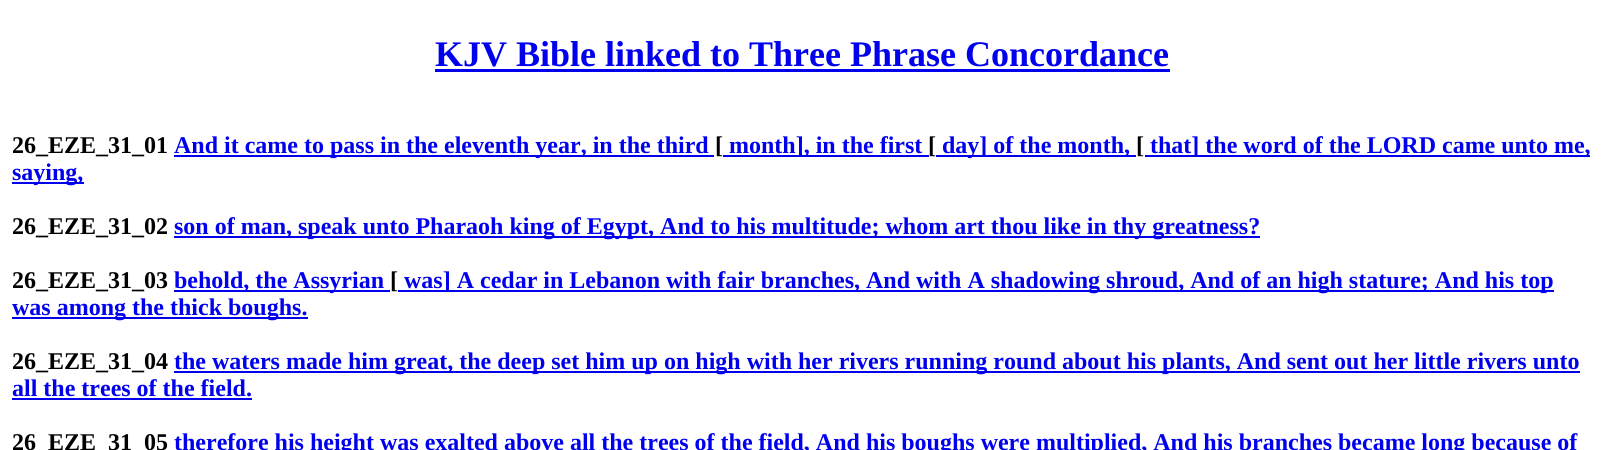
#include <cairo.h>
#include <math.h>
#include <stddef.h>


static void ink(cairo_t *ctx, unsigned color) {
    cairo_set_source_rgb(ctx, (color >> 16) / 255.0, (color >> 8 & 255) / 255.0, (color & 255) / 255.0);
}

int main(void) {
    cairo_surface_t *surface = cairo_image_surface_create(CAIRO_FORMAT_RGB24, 1604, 450);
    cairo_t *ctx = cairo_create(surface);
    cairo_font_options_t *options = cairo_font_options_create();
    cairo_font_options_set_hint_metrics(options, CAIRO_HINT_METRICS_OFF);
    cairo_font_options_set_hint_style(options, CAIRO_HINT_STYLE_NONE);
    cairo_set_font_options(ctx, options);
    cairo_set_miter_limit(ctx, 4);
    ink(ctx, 0xFFFFFF);
    cairo_paint(ctx);
    cairo_select_font_face(ctx, "Liberation Serif", CAIRO_FONT_SLANT_NORMAL, CAIRO_FONT_WEIGHT_BOLD);
    cairo_set_font_size(ctx, 36);
    ink(ctx, 0x0000EE);
    cairo_move_to(ctx, 435, 66);
    cairo_show_text(ctx, "KJV Bible linked to Three Phrase Concordance");
    cairo_rectangle(ctx, 435, 69, 735, 3);
    cairo_fill(ctx);
    cairo_set_font_size(ctx, 24);
    ink(ctx, 0x000000);
    cairo_move_to(ctx, 12, 153);
    cairo_show_text(ctx, "26_EZE_31_01");
    ink(ctx, 0x0000EE);
    cairo_rectangle(ctx, 174, 155, 540, 2);
    cairo_fill(ctx);
    cairo_move_to(ctx, 174, 153);
    cairo_show_text(ctx, "And it came to pass in the eleventh year, in the third");
    ink(ctx, 0x000000);
    cairo_move_to(ctx, 715, 153);
    cairo_show_text(ctx, "[");
    ink(ctx, 0x0000EE);
    cairo_rectangle(ctx, 723, 155, 206, 2);
    cairo_fill(ctx);
    cairo_move_to(ctx, 729, 153);
    cairo_show_text(ctx, "month], in the first");
    ink(ctx, 0x000000);
    cairo_move_to(ctx, 928, 153);
    cairo_show_text(ctx, "[");
    ink(ctx, 0x0000EE);
    cairo_rectangle(ctx, 936, 155, 200, 2);
    cairo_fill(ctx);
    cairo_move_to(ctx, 942, 153);
    cairo_show_text(ctx, "day] of the month,");
    ink(ctx, 0x000000);
    cairo_move_to(ctx, 1136, 153);
    cairo_show_text(ctx, "[");
    ink(ctx, 0x0000EE);
    cairo_rectangle(ctx, 1145, 155, 445, 2);
    cairo_fill(ctx);
    cairo_move_to(ctx, 1150, 153);
    cairo_show_text(ctx, "that] the word of the LORD came unto me,");
    cairo_rectangle(ctx, 12, 182, 72, 2);
    cairo_fill(ctx);
    cairo_move_to(ctx, 12, 180);
    cairo_show_text(ctx, "saying,");
    ink(ctx, 0x000000);
    cairo_move_to(ctx, 12, 234);
    cairo_show_text(ctx, "26_EZE_31_02");
    ink(ctx, 0x0000EE);
    cairo_rectangle(ctx, 174, 236, 1086, 2);
    cairo_fill(ctx);
    cairo_move_to(ctx, 174, 234);
    cairo_show_text(ctx, "son of man, speak unto Pharaoh king of Egypt, And to his multitude; whom art thou like in thy greatness?");
    ink(ctx, 0x000000);
    cairo_move_to(ctx, 12, 288);
    cairo_show_text(ctx, "26_EZE_31_03");
    ink(ctx, 0x0000EE);
    cairo_rectangle(ctx, 174, 290, 216, 2);
    cairo_fill(ctx);
    cairo_move_to(ctx, 174, 288);
    cairo_show_text(ctx, "behold, the Assyrian");
    ink(ctx, 0x000000);
    cairo_move_to(ctx, 390, 288);
    cairo_show_text(ctx, "[");
    ink(ctx, 0x0000EE);
    cairo_rectangle(ctx, 398, 290, 1156, 2);
    cairo_fill(ctx);
    cairo_move_to(ctx, 404, 288);
    cairo_show_text(ctx, "was] A cedar in Lebanon with fair branches, And with A shadowing shroud, And of an high stature; And his top");
    cairo_rectangle(ctx, 12, 317, 296, 2);
    cairo_fill(ctx);
    cairo_move_to(ctx, 12, 315);
    cairo_show_text(ctx, "was among the thick boughs.");
    ink(ctx, 0x000000);
    cairo_move_to(ctx, 12, 369);
    cairo_show_text(ctx, "26_EZE_31_04");
    ink(ctx, 0x0000EE);
    cairo_rectangle(ctx, 174, 371, 1406, 2);
    cairo_fill(ctx);
    cairo_move_to(ctx, 174, 369);
    cairo_show_text(ctx, "the waters made him great, the deep set him up on high with her rivers running round about his plants, And sent out her little rivers unto");
    cairo_move_to(ctx, 12, 396);
    cairo_show_text(ctx, "all the trees of the field.");
    cairo_rectangle(ctx, 12, 398, 240, 2);
    cairo_fill(ctx);
    ink(ctx, 0x000000);
    cairo_move_to(ctx, 12, 450);
    cairo_show_text(ctx, "26_EZE_31_05");
    ink(ctx, 0x0000EE);
    cairo_move_to(ctx, 174, 450);
    cairo_show_text(ctx, "therefore his height was exalted above all the trees of the field, And his boughs were multiplied, And his branches became long because of");
    cairo_surface_write_to_png(surface, "image.png");
    cairo_font_options_destroy(options);
    cairo_destroy(ctx);
    cairo_surface_destroy(surface);
    return 0;
}
